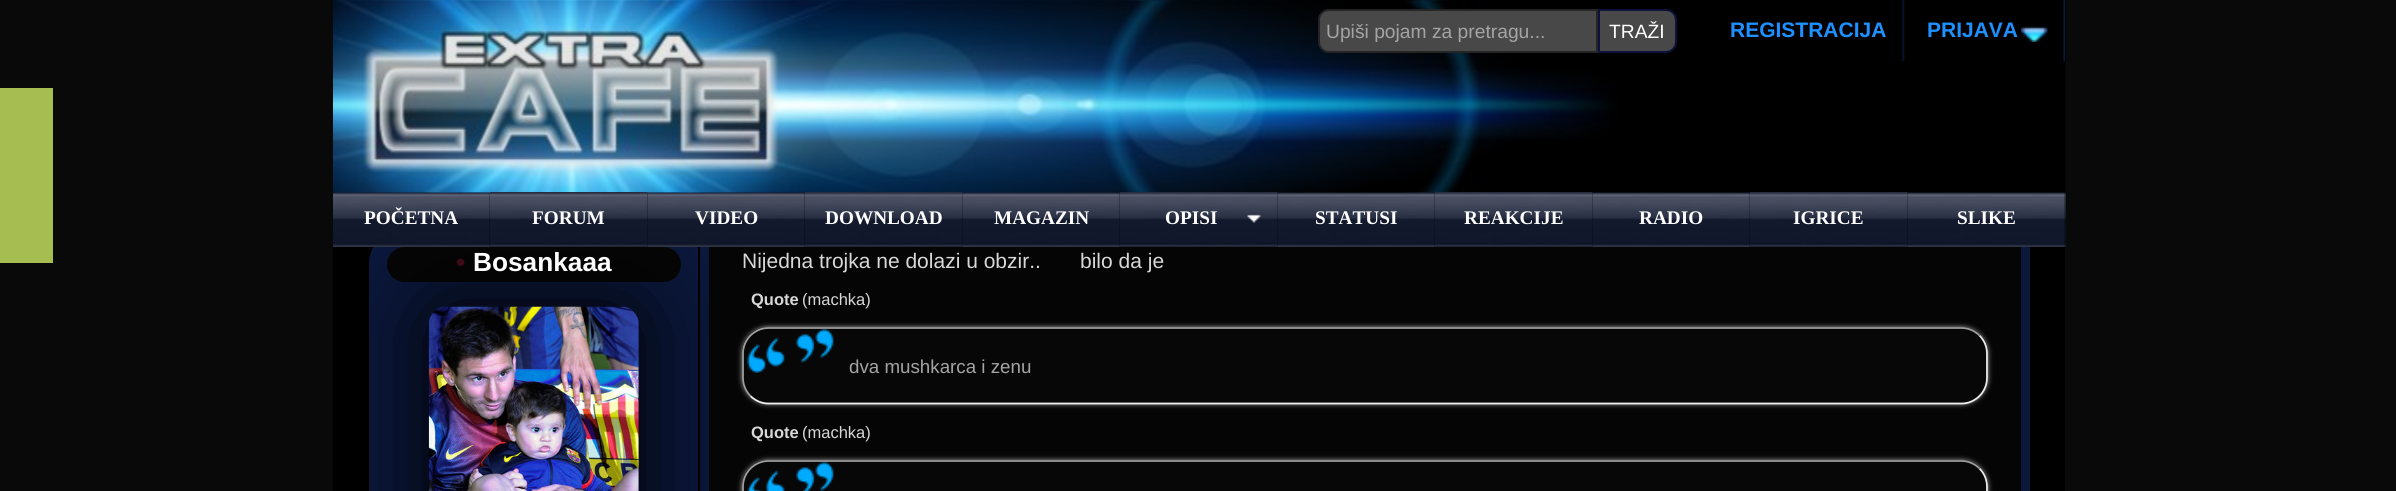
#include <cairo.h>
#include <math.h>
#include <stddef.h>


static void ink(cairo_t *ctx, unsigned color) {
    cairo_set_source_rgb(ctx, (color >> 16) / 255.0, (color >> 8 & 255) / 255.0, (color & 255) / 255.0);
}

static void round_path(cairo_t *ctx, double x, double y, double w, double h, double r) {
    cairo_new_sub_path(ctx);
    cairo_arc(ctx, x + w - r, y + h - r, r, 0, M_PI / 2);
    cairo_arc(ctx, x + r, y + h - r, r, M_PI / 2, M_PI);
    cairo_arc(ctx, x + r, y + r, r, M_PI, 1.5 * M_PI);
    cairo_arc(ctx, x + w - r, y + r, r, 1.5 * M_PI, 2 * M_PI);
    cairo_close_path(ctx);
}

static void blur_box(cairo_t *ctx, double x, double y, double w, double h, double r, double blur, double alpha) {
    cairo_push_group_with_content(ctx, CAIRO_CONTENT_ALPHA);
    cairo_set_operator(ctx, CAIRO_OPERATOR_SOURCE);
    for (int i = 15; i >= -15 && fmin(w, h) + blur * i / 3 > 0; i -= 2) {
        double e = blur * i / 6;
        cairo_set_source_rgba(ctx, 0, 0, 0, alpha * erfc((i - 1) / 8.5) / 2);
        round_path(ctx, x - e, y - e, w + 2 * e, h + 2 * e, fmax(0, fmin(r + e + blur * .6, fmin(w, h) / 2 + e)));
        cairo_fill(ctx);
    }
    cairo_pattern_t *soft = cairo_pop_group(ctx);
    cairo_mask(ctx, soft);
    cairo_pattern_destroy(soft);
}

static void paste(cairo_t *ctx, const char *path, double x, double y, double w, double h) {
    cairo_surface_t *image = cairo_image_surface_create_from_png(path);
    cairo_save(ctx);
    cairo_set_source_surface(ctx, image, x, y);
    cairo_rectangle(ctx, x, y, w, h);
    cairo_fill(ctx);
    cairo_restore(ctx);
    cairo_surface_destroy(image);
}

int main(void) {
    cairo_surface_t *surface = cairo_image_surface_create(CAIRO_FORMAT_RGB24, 2396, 491);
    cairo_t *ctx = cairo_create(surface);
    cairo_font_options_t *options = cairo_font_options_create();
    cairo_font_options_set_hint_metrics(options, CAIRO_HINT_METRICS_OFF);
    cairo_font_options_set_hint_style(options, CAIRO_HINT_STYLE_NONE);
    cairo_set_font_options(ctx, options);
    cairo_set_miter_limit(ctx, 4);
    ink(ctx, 0x090909);
    cairo_paint(ctx);
    ink(ctx, 0xA5BD51);
    cairo_rectangle(ctx, 0, 88, 53, 175);
    cairo_fill(ctx);
    ink(ctx, 0x000000);
    cairo_rectangle(ctx, 333, 61, 1732, 430);
    cairo_fill(ctx);
    ink(ctx, 0x0B173B);
    cairo_new_path(ctx);
    cairo_move_to(ctx, 404, 229);
    cairo_line_to(ctx, 698, 229);
    cairo_line_to(ctx, 698, 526);
    cairo_line_to(ctx, 404, 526);
    cairo_curve_to(ctx, 384.5, 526, 369, 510.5, 369, 491);
    cairo_line_to(ctx, 369, 264);
    cairo_curve_to(ctx, 369, 244.5, 384.5, 229, 404, 229);
    cairo_close_path(ctx);
    cairo_fill(ctx);
    ink(ctx, 0x050505);
    round_path(ctx, 387, 247, 294, 35, 17.5);
    cairo_fill(ctx);
    ink(ctx, 0x0B173B);
    cairo_rectangle(ctx, 700, 247, 1330, 244);
    cairo_fill(ctx);
    ink(ctx, 0x050505);
    cairo_rectangle(ctx, 709, 247, 1312, 244);
    cairo_fill(ctx);
    ink(ctx, 0x000000);
    blur_box(ctx, 429, 306, 210, 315, 18, 44, 1);
    paste(ctx, "media/1.png", 333, 0, 1733, 230);
    ink(ctx, 0x484848);
    cairo_new_path(ctx);
    cairo_move_to(ctx, 1329, 10);
    cairo_line_to(ctx, 1597, 10);
    cairo_line_to(ctx, 1597, 52);
    cairo_line_to(ctx, 1329, 52);
    cairo_curve_to(ctx, 1323.5, 52, 1319, 47.5, 1319, 42);
    cairo_line_to(ctx, 1319, 20);
    cairo_curve_to(ctx, 1319, 14.5, 1323.5, 10, 1329, 10);
    cairo_close_path(ctx);
    cairo_fill_preserve(ctx);
    ink(ctx, 0x252525);
    cairo_stroke(ctx);
    cairo_select_font_face(ctx, "Liberation Sans", CAIRO_FONT_SLANT_NORMAL, CAIRO_FONT_WEIGHT_NORMAL);
    cairo_set_font_size(ctx, 19.25);
    ink(ctx, 0xA4A4A4);
    cairo_move_to(ctx, 1326, 38);
    cairo_show_text(ctx, "Upiši pojam za pretragu...");
    ink(ctx, 0x484848);
    cairo_new_path(ctx);
    cairo_move_to(ctx, 1599, 10);
    cairo_line_to(ctx, 1666, 10);
    cairo_curve_to(ctx, 1671.5, 10, 1676, 14.5, 1676, 20);
    cairo_line_to(ctx, 1676, 42);
    cairo_curve_to(ctx, 1676, 47.5, 1671.5, 52, 1666, 52);
    cairo_line_to(ctx, 1599, 52);
    cairo_close_path(ctx);
    cairo_fill_preserve(ctx);
    ink(ctx, 0x0C123B);
    cairo_stroke(ctx);
    ink(ctx, 0xFFFFFF);
    cairo_move_to(ctx, 1609, 38);
    cairo_show_text(ctx, "TRAŽI");
    paste(ctx, "media/2.png", 1901, 0, 4, 62);
    cairo_select_font_face(ctx, "Liberation Sans", CAIRO_FONT_SLANT_NORMAL, CAIRO_FONT_WEIGHT_BOLD);
    cairo_set_font_size(ctx, 21);
    ink(ctx, 0x1E90FF);
    cairo_move_to(ctx, 1730, 37);
    cairo_show_text(ctx, "REGISTRACIJA");
    paste(ctx, "media/3.png", 2063, 0, 2, 62);
    paste(ctx, "media/4.png", 2021, 26, 27, 16);
    cairo_move_to(ctx, 1927, 37);
    cairo_show_text(ctx, "PRIJAVA");
    ink(ctx, 0x000000);
    cairo_rectangle(ctx, 333, 193, 472, 54);
    cairo_fill(ctx);
    paste(ctx, "media/5.png", 333, 192, 157, 55);
    cairo_select_font_face(ctx, "Liberation Serif", CAIRO_FONT_SLANT_NORMAL, CAIRO_FONT_WEIGHT_BOLD);
    cairo_set_font_size(ctx, 19.25);
    ink(ctx, 0xFFFFFF);
    cairo_move_to(ctx, 364, 224);
    cairo_show_text(ctx, "POČETNA");
    paste(ctx, "media/6.png", 490, 192, 158, 55);
    cairo_move_to(ctx, 532, 224);
    cairo_show_text(ctx, "FORUM");
    paste(ctx, "media/7.png", 647, 192, 158, 55);
    cairo_move_to(ctx, 695, 224);
    cairo_show_text(ctx, "VIDEO");
    ink(ctx, 0x000000);
    cairo_rectangle(ctx, 805, 193, 675, 37);
    cairo_fill(ctx);
    paste(ctx, "media/8.png", 805, 192, 158, 55);
    ink(ctx, 0xFFFFFF);
    cairo_move_to(ctx, 825, 224);
    cairo_show_text(ctx, "DOWNLOAD");
    paste(ctx, "media/9.png", 962, 192, 158, 55);
    cairo_move_to(ctx, 994, 224);
    cairo_show_text(ctx, "MAGAZIN");
    paste(ctx, "media/10.png", 1120, 192, 158, 55);
    paste(ctx, "media/11.png", 1247, 214, 14, 9);
    cairo_move_to(ctx, 1165, 224);
    cairo_show_text(ctx, "OPISI");
    paste(ctx, "media/12.png", 1277, 192, 158, 55);
    cairo_move_to(ctx, 1315, 224);
    cairo_show_text(ctx, "STATUSI");
    paste(ctx, "media/13.png", 1435, 192, 158, 55);
    cairo_move_to(ctx, 1464, 224);
    cairo_show_text(ctx, "REAKCIJE");
    paste(ctx, "media/14.png", 1592, 192, 158, 55);
    cairo_move_to(ctx, 1639, 224);
    cairo_show_text(ctx, "RADIO");
    paste(ctx, "media/15.png", 1750, 192, 158, 55);
    cairo_move_to(ctx, 1793, 224);
    cairo_show_text(ctx, "IGRICE");
    paste(ctx, "media/16.png", 1907, 192, 159, 55);
    cairo_move_to(ctx, 1957, 224);
    cairo_show_text(ctx, "SLIKE");
    cairo_select_font_face(ctx, "Liberation Sans", CAIRO_FONT_SLANT_NORMAL, CAIRO_FONT_WEIGHT_BOLD);
    cairo_set_font_size(ctx, 26.25);
    ink(ctx, 0x3B0B17);
    cairo_move_to(ctx, 456, 271);
    cairo_show_text(ctx, "•");
    ink(ctx, 0xFFFFFF);
    cairo_move_to(ctx, 473, 271);
    cairo_show_text(ctx, "Bosankaaa");
    paste(ctx, "media/17.png", 428, 306, 211, 185);
    cairo_select_font_face(ctx, "Liberation Sans", CAIRO_FONT_SLANT_NORMAL, CAIRO_FONT_WEIGHT_NORMAL);
    cairo_set_font_size(ctx, 21);
    ink(ctx, 0xD8D8D8);
    cairo_move_to(ctx, 742, 268);
    cairo_show_text(ctx, "Nijedna trojka ne dolazi u obzir..");
    cairo_move_to(ctx, 1080, 268);
    cairo_show_text(ctx, "bilo da je");
    cairo_select_font_face(ctx, "Liberation Sans", CAIRO_FONT_SLANT_NORMAL, CAIRO_FONT_WEIGHT_BOLD);
    cairo_set_font_size(ctx, 16.5);
    cairo_move_to(ctx, 751, 305);
    cairo_show_text(ctx, "Quote");
    cairo_select_font_face(ctx, "Liberation Sans", CAIRO_FONT_SLANT_NORMAL, CAIRO_FONT_WEIGHT_NORMAL);
    cairo_move_to(ctx, 802, 305);
    cairo_show_text(ctx, "(machka)");
    ink(ctx, 0xA4A4A4);
    blur_box(ctx, 742, 327, 1246, 77, 26, 2.5, 1);
    ink(ctx, 0x070707);
    round_path(ctx, 742, 327, 1246, 77, 26);
    cairo_fill(ctx);
    paste(ctx, "media/18.png", 746, 329, 88, 44);
    cairo_new_path(ctx);
    cairo_move_to(ctx, 1979.5, 335.5);
    cairo_curve_to(ctx, 1984.5, 340.5, 1987, 347, 1987, 353.5);
    cairo_line_to(ctx, 1987, 378);
    cairo_curve_to(ctx, 1987, 384.5, 1984.5, 391, 1979.5, 396);
    cairo_curve_to(ctx, 1975, 400.5, 1968.5, 403.5, 1962, 403.5);
    cairo_line_to(ctx, 768, 403.5);
    cairo_curve_to(ctx, 761.5, 403.5, 755, 400.5, 750.5, 396);
    ink(ctx, 0xEEEEEE);
    cairo_set_line_width(ctx, 1.8);
    cairo_stroke(ctx);
    cairo_new_path(ctx);
    cairo_move_to(ctx, 750.5, 396);
    cairo_curve_to(ctx, 745.5, 391, 743, 384.5, 743, 378);
    cairo_line_to(ctx, 743, 353.5);
    cairo_curve_to(ctx, 743, 347, 745.5, 340.5, 750.5, 335.5);
    cairo_curve_to(ctx, 755, 331, 761.5, 328, 768, 328);
    cairo_line_to(ctx, 1962, 328);
    cairo_curve_to(ctx, 1968.5, 328, 1975, 331, 1979.5, 335.5);
    ink(ctx, 0x9F9F9F);
    cairo_stroke(ctx);
    cairo_set_font_size(ctx, 18.75);
    ink(ctx, 0xA4A4A4);
    cairo_move_to(ctx, 849, 373);
    cairo_show_text(ctx, "dva mushkarca i zenu");
    cairo_select_font_face(ctx, "Liberation Sans", CAIRO_FONT_SLANT_NORMAL, CAIRO_FONT_WEIGHT_BOLD);
    cairo_set_font_size(ctx, 16.5);
    ink(ctx, 0xD8D8D8);
    cairo_move_to(ctx, 751, 438);
    cairo_show_text(ctx, "Quote");
    cairo_select_font_face(ctx, "Liberation Sans", CAIRO_FONT_SLANT_NORMAL, CAIRO_FONT_WEIGHT_NORMAL);
    cairo_move_to(ctx, 802, 438);
    cairo_show_text(ctx, "(machka)");
    ink(ctx, 0xA4A4A4);
    blur_box(ctx, 742, 460, 1246, 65, 26, 2.5, 1);
    ink(ctx, 0x070707);
    round_path(ctx, 742, 460, 1246, 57, 26);
    cairo_fill(ctx);
    paste(ctx, "media/19.png", 747, 462, 87, 29);
    cairo_new_path(ctx);
    cairo_move_to(ctx, 1979.5, 468.5);
    cairo_curve_to(ctx, 1984.5, 473.5, 1987, 480, 1987, 486.5);
    cairo_line_to(ctx, 1987, 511);
    cairo_curve_to(ctx, 1987, 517.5, 1984.5, 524, 1979.5, 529);
    cairo_curve_to(ctx, 1975, 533.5, 1968.5, 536.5, 1962, 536.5);
    cairo_line_to(ctx, 768, 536.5);
    cairo_curve_to(ctx, 761.5, 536.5, 755, 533.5, 750.5, 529);
    ink(ctx, 0xEEEEEE);
    cairo_stroke(ctx);
    cairo_new_path(ctx);
    cairo_move_to(ctx, 750.5, 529);
    cairo_curve_to(ctx, 745.5, 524, 743, 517.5, 743, 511);
    cairo_line_to(ctx, 743, 486.5);
    cairo_curve_to(ctx, 743, 480, 745.5, 473.5, 750.5, 468.5);
    cairo_curve_to(ctx, 755, 464, 761.5, 461, 768, 461);
    cairo_line_to(ctx, 1962, 461);
    cairo_curve_to(ctx, 1968.5, 461, 1975, 464, 1979.5, 468.5);
    ink(ctx, 0x9F9F9F);
    cairo_stroke(ctx);
    cairo_surface_write_to_png(surface, "image.png");
    cairo_font_options_destroy(options);
    cairo_destroy(ctx);
    cairo_surface_destroy(surface);
    return 0;
}
